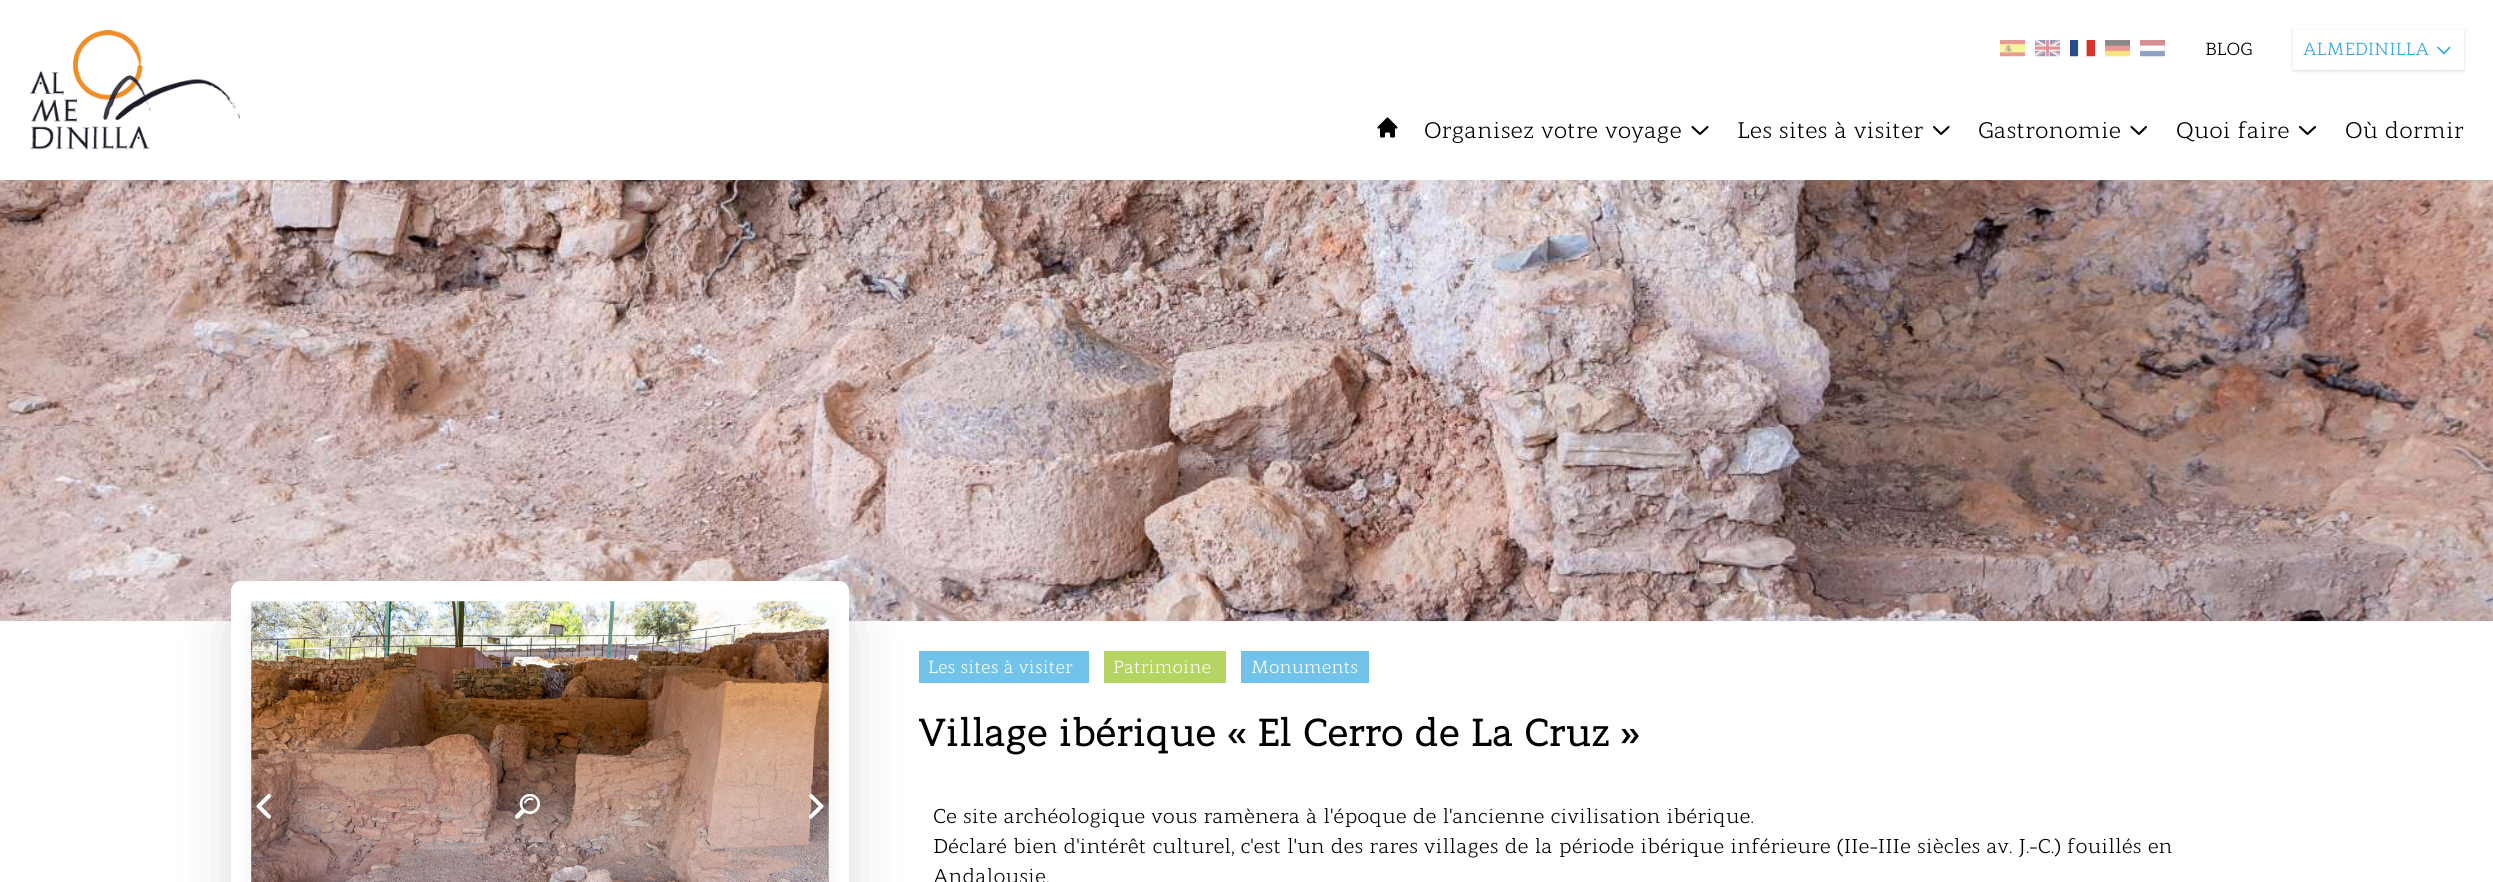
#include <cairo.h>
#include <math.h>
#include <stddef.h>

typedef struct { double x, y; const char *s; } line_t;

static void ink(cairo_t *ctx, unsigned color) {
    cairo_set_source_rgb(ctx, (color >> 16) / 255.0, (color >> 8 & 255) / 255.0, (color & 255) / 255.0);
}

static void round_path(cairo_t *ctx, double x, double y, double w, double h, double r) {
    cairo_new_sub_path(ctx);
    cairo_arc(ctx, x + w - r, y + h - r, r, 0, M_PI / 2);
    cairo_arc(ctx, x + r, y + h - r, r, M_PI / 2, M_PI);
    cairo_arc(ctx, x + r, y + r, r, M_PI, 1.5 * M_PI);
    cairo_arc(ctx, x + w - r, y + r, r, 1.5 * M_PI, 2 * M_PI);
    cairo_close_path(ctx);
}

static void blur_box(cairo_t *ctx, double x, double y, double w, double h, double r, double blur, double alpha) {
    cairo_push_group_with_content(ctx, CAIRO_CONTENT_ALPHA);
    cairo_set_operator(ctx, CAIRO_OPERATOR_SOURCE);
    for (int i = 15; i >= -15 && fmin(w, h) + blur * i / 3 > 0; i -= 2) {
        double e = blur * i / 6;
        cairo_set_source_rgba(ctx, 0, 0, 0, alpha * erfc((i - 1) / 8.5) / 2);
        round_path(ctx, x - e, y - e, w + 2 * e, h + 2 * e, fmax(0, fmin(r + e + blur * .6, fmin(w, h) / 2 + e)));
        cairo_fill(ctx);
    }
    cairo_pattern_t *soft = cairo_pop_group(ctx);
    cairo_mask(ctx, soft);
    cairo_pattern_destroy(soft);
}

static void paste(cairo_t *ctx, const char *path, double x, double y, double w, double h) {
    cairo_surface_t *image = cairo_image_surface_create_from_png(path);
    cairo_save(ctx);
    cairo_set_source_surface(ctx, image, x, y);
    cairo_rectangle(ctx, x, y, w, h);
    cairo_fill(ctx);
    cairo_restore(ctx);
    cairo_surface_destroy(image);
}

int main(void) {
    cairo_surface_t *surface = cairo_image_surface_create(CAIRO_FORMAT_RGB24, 2493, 882);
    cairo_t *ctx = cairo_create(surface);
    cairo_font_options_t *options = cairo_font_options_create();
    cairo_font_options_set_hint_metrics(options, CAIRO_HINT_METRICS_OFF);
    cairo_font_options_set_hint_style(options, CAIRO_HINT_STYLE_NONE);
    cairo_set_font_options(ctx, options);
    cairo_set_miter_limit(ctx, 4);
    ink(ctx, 0xFFFFFF);
    cairo_paint(ctx);
    paste(ctx, "media/1.png", 30, 30, 210, 120);
    paste(ctx, "media/2.png", 2000, 40, 25, 17);
    paste(ctx, "media/3.png", 2035, 40, 25, 17);
    paste(ctx, "media/4.png", 2070, 40, 25, 17);
    paste(ctx, "media/5.png", 2105, 40, 25, 17);
    paste(ctx, "media/6.png", 2140, 40, 25, 17);
    cairo_select_font_face(ctx, "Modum", CAIRO_FONT_SLANT_NORMAL, CAIRO_FONT_WEIGHT_NORMAL);
    cairo_set_font_size(ctx, 17.5);
    ink(ctx, 0x000000);
    cairo_move_to(ctx, 2205, 55);
    cairo_show_text(ctx, "BLOG");
    ink(ctx, 0x000000);
    blur_box(ctx, 2293, 31, 171, 40, 0, 1, 0.06);
    blur_box(ctx, 2293, 31, 171, 40, 0, 2, 0.1);
    ink(ctx, 0xFFFFFF);
    cairo_rectangle(ctx, 2293, 30, 171, 40);
    cairo_fill(ctx);
    ink(ctx, 0x36A9E0);
    cairo_move_to(ctx, 2303, 55);
    cairo_show_text(ctx, "ALMEDINILLA");
    cairo_new_path(ctx);
    cairo_move_to(ctx, 2449.5, 47.5);
    cairo_line_to(ctx, 2444, 53.5);
    cairo_line_to(ctx, 2438, 47.5);
    cairo_set_line_width(ctx, 1.7);
    cairo_set_line_cap(ctx, CAIRO_LINE_CAP_ROUND);
    cairo_set_line_join(ctx, CAIRO_LINE_JOIN_ROUND);
    cairo_stroke(ctx);
    paste(ctx, "media/7.png", 1377, 117, 21, 21);
    cairo_set_font_size(ctx, 22.5);
    ink(ctx, 0x000000);
    cairo_move_to(ctx, 1424, 138);
    cairo_show_text(ctx, "Organisez votre voyage");
    cairo_new_path(ctx);
    cairo_move_to(ctx, 1707.5, 127);
    cairo_line_to(ctx, 1700, 134);
    cairo_line_to(ctx, 1692.5, 127);
    cairo_set_line_width(ctx, 2.1);
    cairo_stroke(ctx);
    cairo_move_to(ctx, 1737, 138);
    cairo_show_text(ctx, "Les sites à visiter");
    cairo_new_path(ctx);
    cairo_move_to(ctx, 1948.5, 127);
    cairo_line_to(ctx, 1941, 134);
    cairo_line_to(ctx, 1934, 127);
    cairo_stroke(ctx);
    cairo_move_to(ctx, 1978, 138);
    cairo_show_text(ctx, "Gastronomie");
    cairo_new_path(ctx);
    cairo_move_to(ctx, 2146, 127);
    cairo_line_to(ctx, 2139, 134);
    cairo_line_to(ctx, 2131.5, 127);
    cairo_stroke(ctx);
    cairo_move_to(ctx, 2176, 138);
    cairo_show_text(ctx, "Quoi faire");
    cairo_new_path(ctx);
    cairo_move_to(ctx, 2315, 127);
    cairo_line_to(ctx, 2307.5, 134);
    cairo_line_to(ctx, 2300, 127);
    cairo_stroke(ctx);
    cairo_move_to(ctx, 2345, 138);
    cairo_show_text(ctx, "Où dormir");
    paste(ctx, "media/8.png", 0, 180, 2493, 442);
    ink(ctx, 0x72C3E9);
    cairo_rectangle(ctx, 919, 651, 170, 32);
    cairo_fill(ctx);
    ink(ctx, 0x000000);
    blur_box(ctx, 246, 628, 588, 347, 0, 31, 0.25);
    ink(ctx, 0xFFFFFF);
    round_path(ctx, 231, 581, 618, 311, 10);
    cairo_fill(ctx);
    ink(ctx, 0x000000);
    blur_box(ctx, 255, 618, 570, 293, 0, 9.5, 0.1);
    paste(ctx, "media/9.png", 251, 601, 578, 281);
    paste(ctx, "media/10.png", 256, 794, 16, 25);
    paste(ctx, "media/11.png", 515, 794, 25, 25);
    paste(ctx, "media/12.png", 808, 794, 16, 25);
    cairo_set_font_size(ctx, 17.5);
    ink(ctx, 0xFFFFFF);
    cairo_move_to(ctx, 928, 673);
    cairo_show_text(ctx, "Les sites à visiter");
    ink(ctx, 0xB5D462);
    cairo_rectangle(ctx, 1104, 651, 122, 32);
    cairo_fill(ctx);
    ink(ctx, 0xFFFFFF);
    cairo_move_to(ctx, 1113, 673);
    cairo_show_text(ctx, "Patrimoine");
    ink(ctx, 0x72C3E9);
    cairo_rectangle(ctx, 1241, 651, 128, 32);
    cairo_fill(ctx);
    ink(ctx, 0xFFFFFF);
    cairo_move_to(ctx, 1251, 673);
    cairo_show_text(ctx, "Monuments");
    cairo_select_font_face(ctx, "Modum", CAIRO_FONT_SLANT_NORMAL, CAIRO_FONT_WEIGHT_BOLD);
    cairo_set_font_size(ctx, 37.5);
    ink(ctx, 0x000000);
    cairo_move_to(ctx, 918, 746);
    cairo_show_text(ctx, "Village ibérique « El Cerro de La Cruz »");
    cairo_select_font_face(ctx, "Modum", CAIRO_FONT_SLANT_NORMAL, CAIRO_FONT_WEIGHT_NORMAL);
    cairo_set_font_size(ctx, 20);
    {
        static const line_t items[] = {
            {933, 823, "Ce site archéologique vous ramènera à l'époque de l'ancienne civilisation ibérique."},
            {933, 853, "Déclaré bien d'intérêt culturel, c'est l'un des rares villages de la période ibérique inférieure (IIe-IIIe siècles av. J.-C.) fouillés en"},
            {933, 883, "Andalousie."},
        };
        for (size_t i = 0; i < sizeof items / sizeof *items; i++) {
            cairo_move_to(ctx, items[i].x, items[i].y);
            cairo_show_text(ctx, items[i].s);
        }
    }
    cairo_surface_write_to_png(surface, "image.png");
    cairo_font_options_destroy(options);
    cairo_destroy(ctx);
    cairo_surface_destroy(surface);
    return 0;
}
